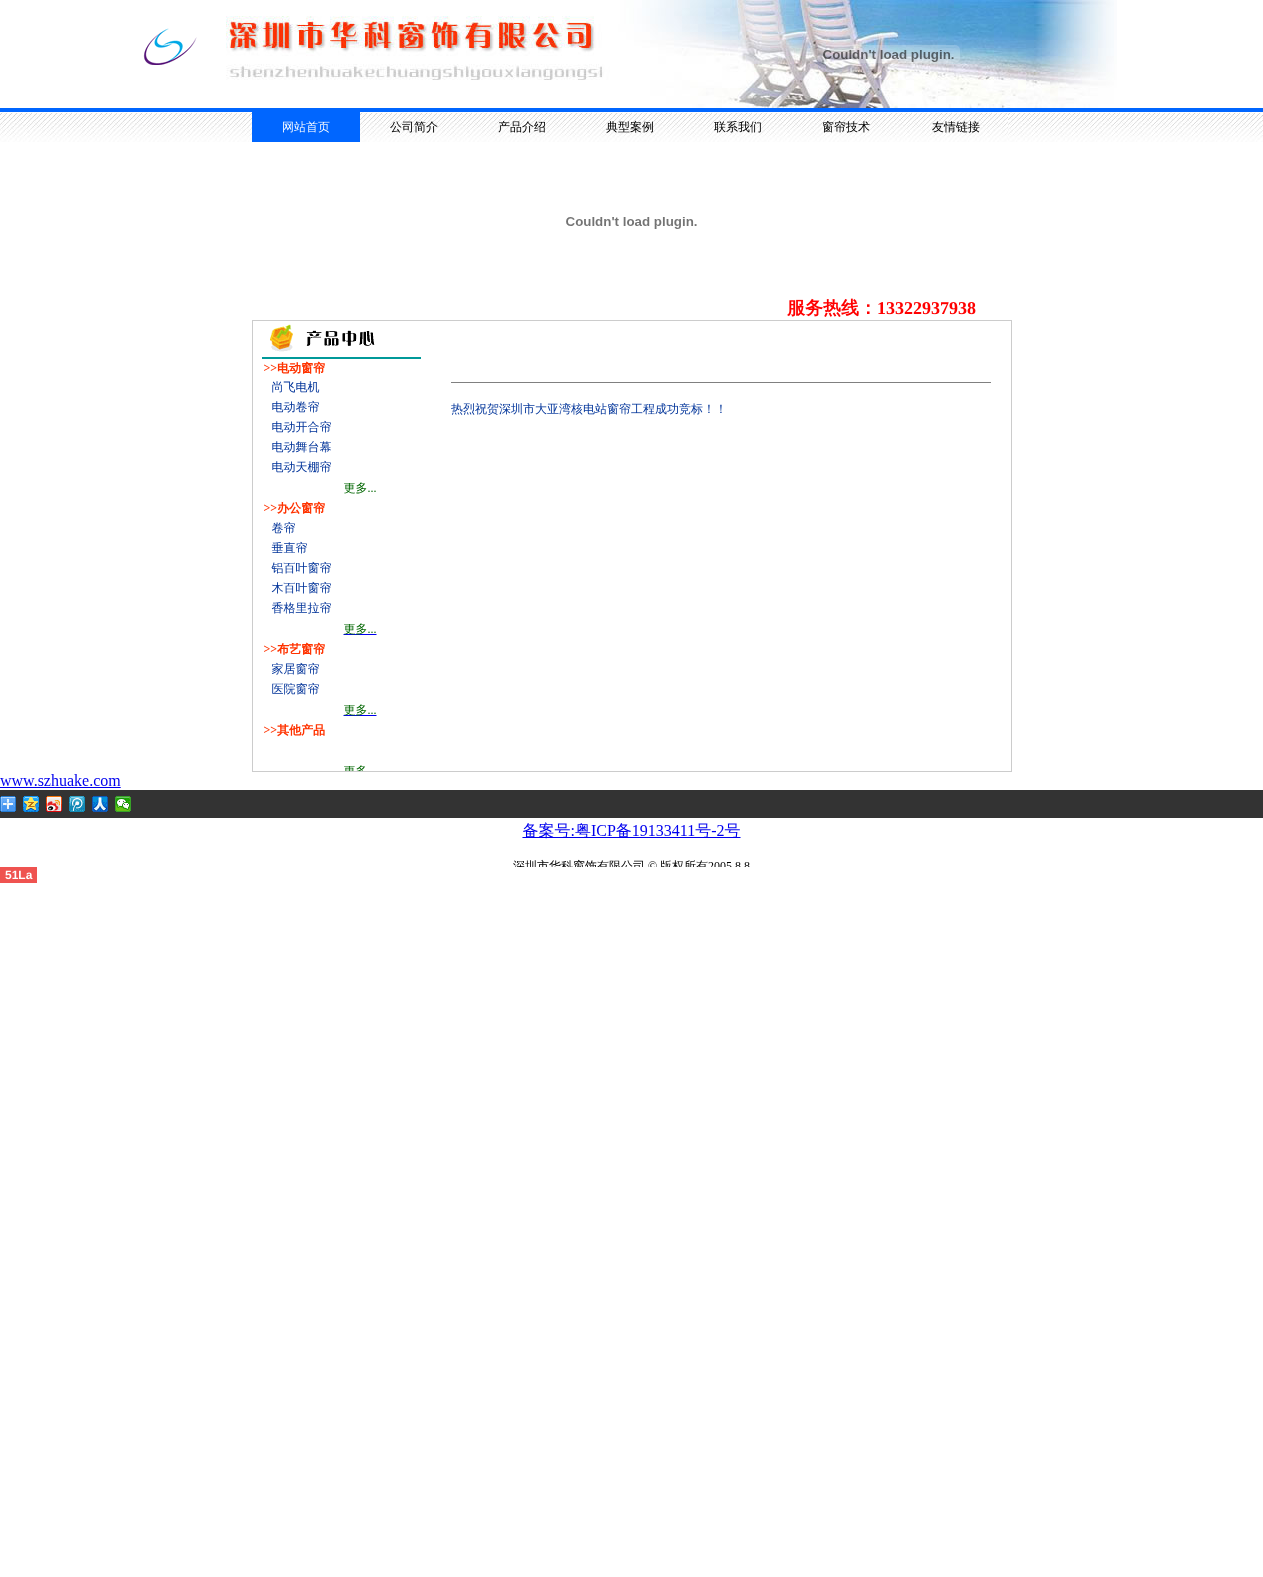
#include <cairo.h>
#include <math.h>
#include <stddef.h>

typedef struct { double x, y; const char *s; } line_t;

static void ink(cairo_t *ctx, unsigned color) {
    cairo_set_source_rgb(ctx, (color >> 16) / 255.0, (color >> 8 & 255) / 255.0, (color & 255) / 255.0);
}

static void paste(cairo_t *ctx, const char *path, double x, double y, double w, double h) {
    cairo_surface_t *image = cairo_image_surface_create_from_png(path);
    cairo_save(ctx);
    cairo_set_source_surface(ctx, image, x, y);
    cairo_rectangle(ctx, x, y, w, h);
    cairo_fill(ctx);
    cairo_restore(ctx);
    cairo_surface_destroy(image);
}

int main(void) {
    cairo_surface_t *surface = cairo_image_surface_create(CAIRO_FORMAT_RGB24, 1263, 1577);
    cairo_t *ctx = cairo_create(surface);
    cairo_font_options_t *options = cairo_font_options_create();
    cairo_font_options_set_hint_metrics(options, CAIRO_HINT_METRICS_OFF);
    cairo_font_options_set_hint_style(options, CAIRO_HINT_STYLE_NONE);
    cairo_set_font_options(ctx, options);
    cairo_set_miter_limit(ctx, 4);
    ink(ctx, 0xFFFFFF);
    cairo_paint(ctx);
    paste(ctx, "media/1.png", 226, 0, 891, 108);
    paste(ctx, "media/2.png", 143, 28, 54, 37);
    paste(ctx, "media/3.png", 817, 45, 143, 18);
    ink(ctx, 0x0066FF);
    cairo_rectangle(ctx, 0, 108, 1263, 4);
    cairo_fill(ctx);
    paste(ctx, "media/4.png", 0, 112, 1263, 30);
    cairo_rectangle(ctx, 252, 112, 108, 30);
    cairo_fill(ctx);
    cairo_select_font_face(ctx, "WenQuanYi Zen Hei Medium", CAIRO_FONT_SLANT_NORMAL, CAIRO_FONT_WEIGHT_NORMAL);
    cairo_set_font_size(ctx, 12);
    ink(ctx, 0xFFFFFF);
    cairo_move_to(ctx, 282, 131);
    cairo_show_text(ctx, "网站首页");
    ink(ctx, 0x000000);
    {
        static const line_t items[] = {
            {390, 131, "公司简介"},
            {498, 131, "产品介绍"},
            {606, 131, "典型案例"},
            {714, 131, "联系我们"},
            {822, 131, "窗帘技术"},
            {932, 131, "友情链接"},
        };
        for (size_t i = 0; i < sizeof items / sizeof *items; i++) {
            cairo_move_to(ctx, items[i].x, items[i].y);
            cairo_show_text(ctx, items[i].s);
        }
    }
    paste(ctx, "media/5.png", 566, 217, 131, 12);
    cairo_select_font_face(ctx, "WenQuanYi Zen Hei", CAIRO_FONT_SLANT_NORMAL, CAIRO_FONT_WEIGHT_BOLD);
    cairo_set_font_size(ctx, 18);
    ink(ctx, 0xFF0000);
    cairo_move_to(ctx, 787, 314);
    cairo_show_text(ctx, "服务热线：");
    cairo_select_font_face(ctx, "Liberation Serif", CAIRO_FONT_SLANT_NORMAL, CAIRO_FONT_WEIGHT_BOLD);
    cairo_move_to(ctx, 877, 314);
    cairo_show_text(ctx, "13322937938");
    ink(ctx, 0xCCCCCC);
    cairo_rectangle(ctx, 252, 320, 760, 452);
    cairo_fill(ctx);
    ink(ctx, 0xFFFFFF);
    cairo_rectangle(ctx, 253, 321, 758, 450);
    cairo_fill(ctx);
    paste(ctx, "media/6.png", 262, 324, 159, 447);
    ink(ctx, 0x808080);
    cairo_rectangle(ctx, 451, 382, 540, 1);
    cairo_fill(ctx);
    cairo_select_font_face(ctx, "WenQuanYi Zen Hei Medium", CAIRO_FONT_SLANT_NORMAL, CAIRO_FONT_WEIGHT_NORMAL);
    cairo_set_font_size(ctx, 12);
    ink(ctx, 0x003399);
    cairo_move_to(ctx, 451, 413);
    cairo_show_text(ctx, "热烈祝贺深圳市大亚湾核电站窗帘工程成功竞标！！");
    paste(ctx, "media/7.png", 0, 774, 1263, 93);
    ink(ctx, 0xEF5350);
    cairo_rectangle(ctx, 0, 867, 37, 16);
    cairo_fill(ctx);
    cairo_select_font_face(ctx, "Liberation Sans", CAIRO_FONT_SLANT_NORMAL, CAIRO_FONT_WEIGHT_BOLD);
    ink(ctx, 0xFFFFFF);
    cairo_move_to(ctx, 5, 879);
    cairo_show_text(ctx, "51La");
    cairo_surface_write_to_png(surface, "image.png");
    cairo_font_options_destroy(options);
    cairo_destroy(ctx);
    cairo_surface_destroy(surface);
    return 0;
}
